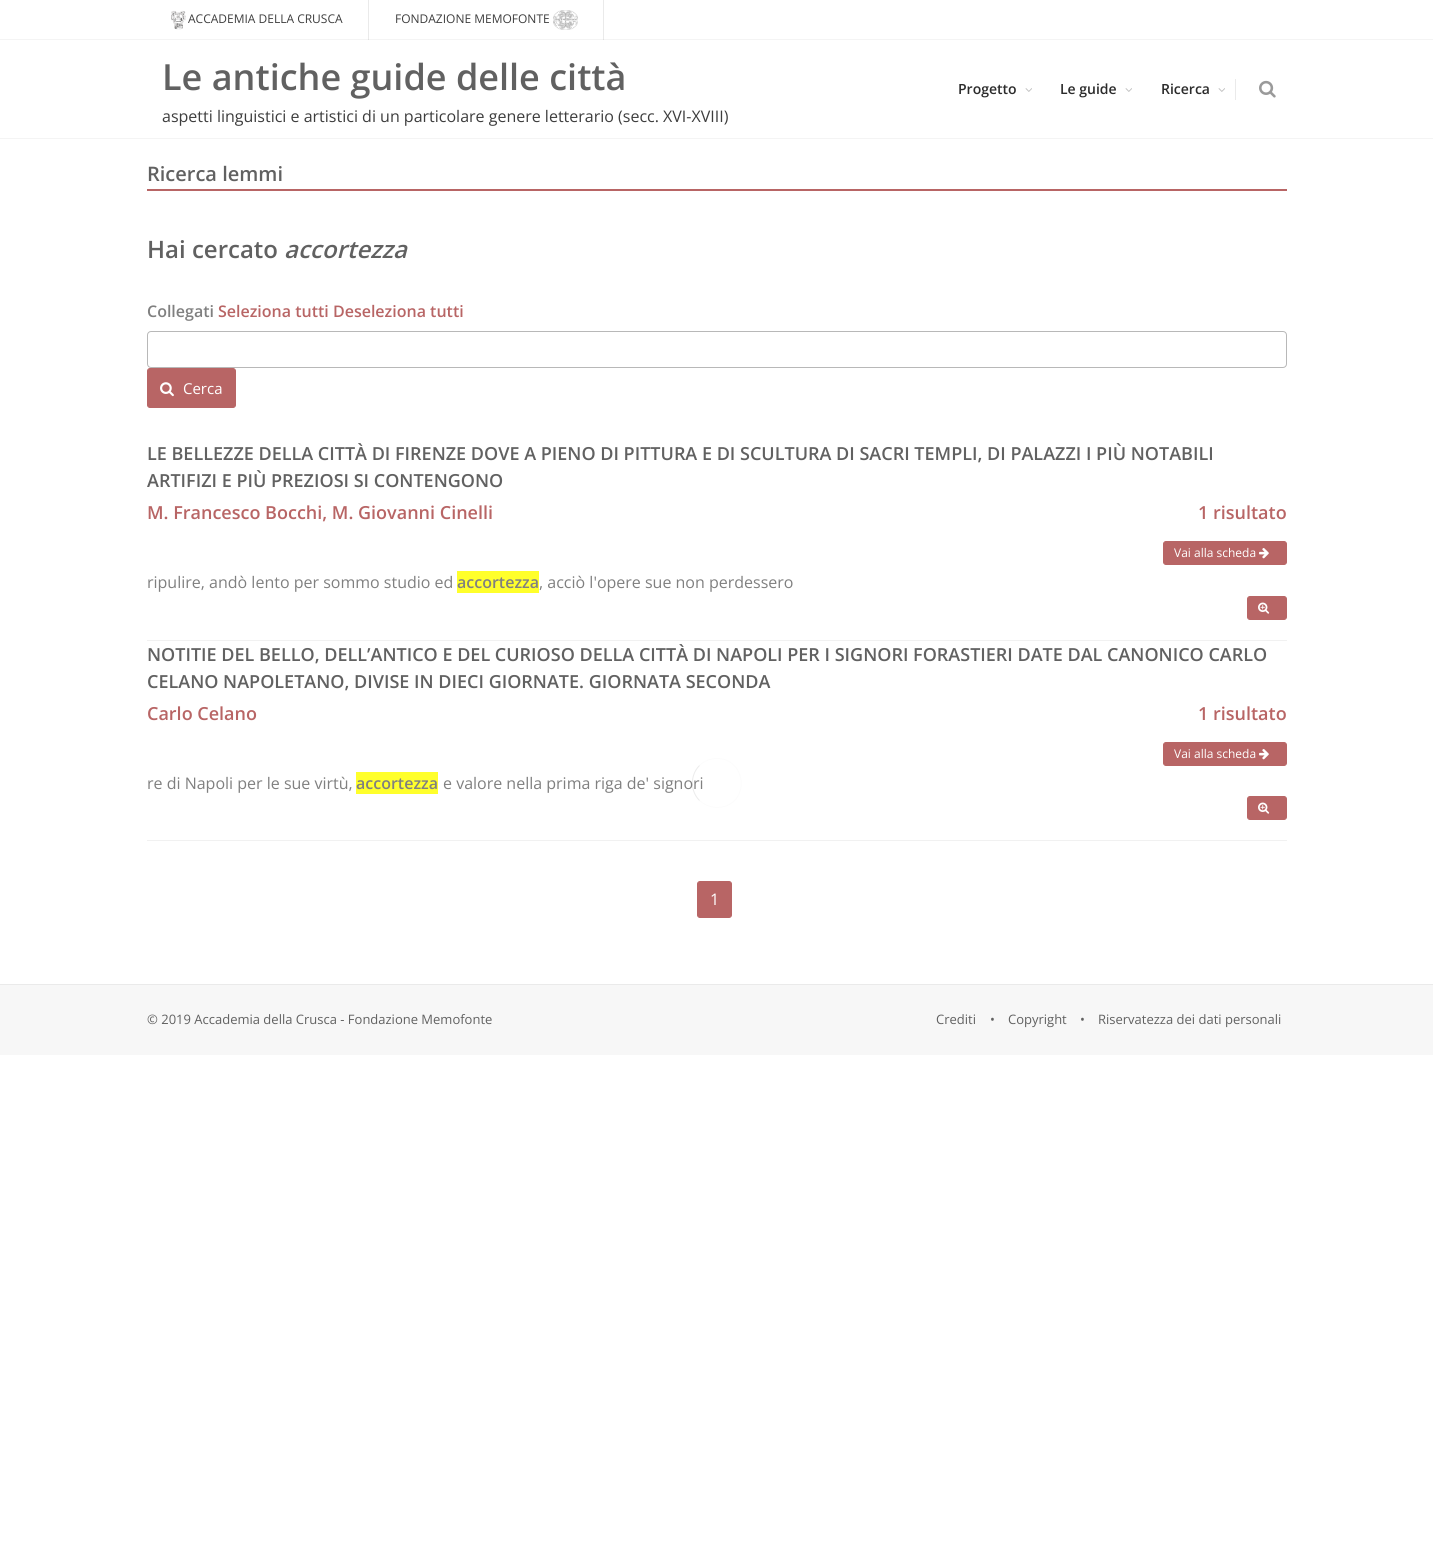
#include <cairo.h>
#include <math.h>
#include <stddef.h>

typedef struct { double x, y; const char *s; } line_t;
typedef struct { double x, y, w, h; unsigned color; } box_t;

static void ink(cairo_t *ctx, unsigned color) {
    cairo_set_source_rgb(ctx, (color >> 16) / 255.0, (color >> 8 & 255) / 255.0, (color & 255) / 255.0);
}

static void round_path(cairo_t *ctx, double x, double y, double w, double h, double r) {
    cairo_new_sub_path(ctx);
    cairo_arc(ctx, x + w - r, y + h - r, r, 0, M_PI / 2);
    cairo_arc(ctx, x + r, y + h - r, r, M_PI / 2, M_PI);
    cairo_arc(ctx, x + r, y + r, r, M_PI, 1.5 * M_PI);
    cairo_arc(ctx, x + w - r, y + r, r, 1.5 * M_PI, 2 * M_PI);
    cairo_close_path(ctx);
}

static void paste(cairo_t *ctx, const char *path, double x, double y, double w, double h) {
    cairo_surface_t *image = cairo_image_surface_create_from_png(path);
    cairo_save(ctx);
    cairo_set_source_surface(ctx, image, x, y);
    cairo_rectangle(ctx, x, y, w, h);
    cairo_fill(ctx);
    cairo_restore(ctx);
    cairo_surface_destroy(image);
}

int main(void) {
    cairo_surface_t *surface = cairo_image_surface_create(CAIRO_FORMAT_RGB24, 1433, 1565);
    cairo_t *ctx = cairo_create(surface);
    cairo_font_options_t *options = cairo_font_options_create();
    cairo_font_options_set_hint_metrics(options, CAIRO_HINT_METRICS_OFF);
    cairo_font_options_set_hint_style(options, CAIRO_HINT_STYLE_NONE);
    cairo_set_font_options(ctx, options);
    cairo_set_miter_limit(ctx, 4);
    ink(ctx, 0xFFFFFF);
    cairo_paint(ctx);
    {
        static const box_t items[] = {
            {603, 0, 1, 40, 0xEAEAEA},
            {368, 0, 1, 40, 0xEAEAEA},
            {0, 39, 1433, 1, 0xF4F4F4},
            {603, 39, 1, 1, 0xE0E0E0},
            {368, 39, 1, 1, 0xE0E0E0},
        };
        for (size_t i = 0; i < sizeof items / sizeof *items; i++) {
            ink(ctx, items[i].color);
            cairo_rectangle(ctx, items[i].x, items[i].y, items[i].w, items[i].h);
            cairo_fill(ctx);
        }
    }
    paste(ctx, "media/1.png", 171, 10, 15, 20);
    cairo_select_font_face(ctx, "Open Sans", CAIRO_FONT_SLANT_NORMAL, CAIRO_FONT_WEIGHT_NORMAL);
    cairo_set_font_size(ctx, 12);
    ink(ctx, 0x3D3D3D);
    cairo_move_to(ctx, 188, 23);
    cairo_show_text(ctx, "ACCADEMIA DELLA CRUSCA");
    cairo_move_to(ctx, 395, 23);
    cairo_show_text(ctx, "FONDAZIONE MEMOFONTE");
    paste(ctx, "media/2.png", 553, 10, 25, 20);
    ink(ctx, 0xF4F4F4);
    cairo_rectangle(ctx, 0, 138, 1433, 1);
    cairo_fill(ctx);
    cairo_select_font_face(ctx, "Open Sans SemiBold", CAIRO_FONT_SLANT_NORMAL, CAIRO_FONT_WEIGHT_NORMAL);
    cairo_set_font_size(ctx, 36);
    ink(ctx, 0x616161);
    cairo_move_to(ctx, 162, 90);
    cairo_show_text(ctx, "Le antiche guide delle città");
    cairo_select_font_face(ctx, "Open Sans", CAIRO_FONT_SLANT_NORMAL, CAIRO_FONT_WEIGHT_NORMAL);
    cairo_set_font_size(ctx, 16);
    ink(ctx, 0x3D3D3D);
    cairo_move_to(ctx, 162, 122);
    cairo_show_text(ctx, "aspetti linguistici e artistici di un particolare genere letterario (secc. XVI-XVIII)");
    cairo_select_font_face(ctx, "Open Sans SemiBold", CAIRO_FONT_SLANT_NORMAL, CAIRO_FONT_WEIGHT_NORMAL);
    cairo_set_font_size(ctx, 14);
    ink(ctx, 0x2B2B2B);
    cairo_move_to(ctx, 958, 94);
    cairo_show_text(ctx, "Progetto");
    paste(ctx, "media/3.png", 1025, 88, 7, 4);
    cairo_move_to(ctx, 1060, 94);
    cairo_show_text(ctx, "Le guide");
    paste(ctx, "media/3.png", 1125, 88, 7, 4);
    cairo_move_to(ctx, 1161, 94);
    cairo_show_text(ctx, "Ricerca");
    paste(ctx, "media/3.png", 1218, 88, 7, 4);
    ink(ctx, 0xEAEAEA);
    cairo_rectangle(ctx, 1235, 79, 1, 21);
    cairo_fill(ctx);
    paste(ctx, "media/4.png", 1259, 80, 17, 18);
    cairo_rectangle(ctx, 0, 984, 1433, 1);
    cairo_fill(ctx);
    ink(ctx, 0xB86565);
    cairo_rectangle(ctx, 147, 189, 1140, 2);
    cairo_fill(ctx);
    cairo_set_font_size(ctx, 20);
    ink(ctx, 0x616161);
    cairo_move_to(ctx, 147, 181);
    cairo_show_text(ctx, "Ricerca lemmi");
    cairo_set_font_size(ctx, 24);
    cairo_move_to(ctx, 147, 258);
    cairo_show_text(ctx, "Hai cercato");
    cairo_select_font_face(ctx, "Open Sans SemiBold", CAIRO_FONT_SLANT_ITALIC, CAIRO_FONT_WEIGHT_NORMAL);
    cairo_move_to(ctx, 284, 258);
    cairo_show_text(ctx, "accortezza");
    cairo_select_font_face(ctx, "Open Sans SemiBold", CAIRO_FONT_SLANT_NORMAL, CAIRO_FONT_WEIGHT_NORMAL);
    cairo_set_font_size(ctx, 16);
    ink(ctx, 0x808080);
    cairo_move_to(ctx, 147, 317);
    cairo_show_text(ctx, "Collegati");
    ink(ctx, 0xB86565);
    cairo_move_to(ctx, 218, 317);
    cairo_show_text(ctx, "Seleziona tutti Deseleziona tutti");
    round_path(ctx, 147.5, 331.5, 1139, 36, 3.5);
    ink(ctx, 0xB8B8B8);
    cairo_set_line_width(ctx, 1);
    cairo_stroke(ctx);
    ink(ctx, 0xB86565);
    round_path(ctx, 147.5, 368.5, 88, 39, 2.5);
    cairo_fill_preserve(ctx);
    cairo_stroke(ctx);
    paste(ctx, "media/5.png", 160, 382, 14, 15);
    cairo_select_font_face(ctx, "Open Sans", CAIRO_FONT_SLANT_NORMAL, CAIRO_FONT_WEIGHT_NORMAL);
    cairo_set_font_size(ctx, 15);
    ink(ctx, 0xFFFFFF);
    cairo_move_to(ctx, 183, 394);
    cairo_show_text(ctx, "Cerca");
    ink(ctx, 0xF1F1F1);
    cairo_rectangle(ctx, 147, 640, 1140, 1);
    cairo_fill(ctx);
    cairo_select_font_face(ctx, "Open Sans SemiBold", CAIRO_FONT_SLANT_NORMAL, CAIRO_FONT_WEIGHT_NORMAL);
    cairo_set_font_size(ctx, 18);
    ink(ctx, 0x616161);
    cairo_move_to(ctx, 147, 460);
    cairo_show_text(ctx, "LE BELLEZZE DELLA CITTÀ DI FIRENZE DOVE A PIENO DI PITTURA E DI SCULTURA DI SACRI TEMPLI, DI PALAZZI I PIÙ NOTABILI");
    cairo_move_to(ctx, 147, 487);
    cairo_show_text(ctx, "ARTIFIZI E PIÙ PREZIOSI SI CONTENGONO");
    ink(ctx, 0xB86565);
    cairo_move_to(ctx, 147, 519);
    cairo_show_text(ctx, "M. Francesco Bocchi, M. Giovanni Cinelli");
    cairo_move_to(ctx, 1198, 519);
    cairo_show_text(ctx, "1 risultato");
    round_path(ctx, 1163.5, 541.5, 123, 23, 2.5);
    cairo_fill_preserve(ctx);
    cairo_stroke(ctx);
    cairo_select_font_face(ctx, "Open Sans", CAIRO_FONT_SLANT_NORMAL, CAIRO_FONT_WEIGHT_NORMAL);
    cairo_set_font_size(ctx, 12);
    ink(ctx, 0xFFFFFF);
    cairo_move_to(ctx, 1174, 557);
    cairo_show_text(ctx, "Vai alla scheda");
    paste(ctx, "media/6.png", 1259, 548, 10, 11);
    cairo_set_font_size(ctx, 16);
    ink(ctx, 0x808080);
    cairo_move_to(ctx, 147, 588);
    cairo_show_text(ctx, "ripulire, andò lento per sommo studio ed");
    ink(ctx, 0xFFFF2B);
    cairo_rectangle(ctx, 457, 571, 82, 22);
    cairo_fill(ctx);
    cairo_select_font_face(ctx, "Open Sans SemiBold", CAIRO_FONT_SLANT_NORMAL, CAIRO_FONT_WEIGHT_NORMAL);
    ink(ctx, 0x808080);
    cairo_move_to(ctx, 457, 588);
    cairo_show_text(ctx, "accortezza");
    cairo_select_font_face(ctx, "Open Sans", CAIRO_FONT_SLANT_NORMAL, CAIRO_FONT_WEIGHT_NORMAL);
    cairo_move_to(ctx, 539, 588);
    cairo_show_text(ctx, ", acciò l'opere sue non perdessero");
    ink(ctx, 0xB86565);
    round_path(ctx, 1247.5, 596.5, 39, 23, 2.5);
    cairo_fill_preserve(ctx);
    cairo_stroke(ctx);
    paste(ctx, "media/7.png", 1258, 602, 12, 12);
    ink(ctx, 0xF1F1F1);
    cairo_rectangle(ctx, 147, 840, 1140, 1);
    cairo_fill(ctx);
    cairo_select_font_face(ctx, "Open Sans SemiBold", CAIRO_FONT_SLANT_NORMAL, CAIRO_FONT_WEIGHT_NORMAL);
    cairo_set_font_size(ctx, 18);
    ink(ctx, 0x616161);
    cairo_move_to(ctx, 147, 661);
    cairo_show_text(ctx, "NOTITIE DEL BELLO, DELL’ANTICO E DEL CURIOSO DELLA CITTÀ DI NAPOLI PER I SIGNORI FORASTIERI DATE DAL CANONICO CARLO");
    cairo_move_to(ctx, 147, 688);
    cairo_show_text(ctx, "CELANO NAPOLETANO, DIVISE IN DIECI GIORNATE. GIORNATA SECONDA");
    ink(ctx, 0xB86565);
    cairo_move_to(ctx, 147, 720);
    cairo_show_text(ctx, "Carlo Celano");
    cairo_move_to(ctx, 1198, 720);
    cairo_show_text(ctx, "1 risultato");
    round_path(ctx, 1163.5, 742.5, 123, 23, 2.5);
    cairo_fill_preserve(ctx);
    cairo_stroke(ctx);
    cairo_select_font_face(ctx, "Open Sans", CAIRO_FONT_SLANT_NORMAL, CAIRO_FONT_WEIGHT_NORMAL);
    cairo_set_font_size(ctx, 12);
    ink(ctx, 0xFFFFFF);
    cairo_move_to(ctx, 1174, 758);
    cairo_show_text(ctx, "Vai alla scheda");
    paste(ctx, "media/6.png", 1259, 749, 10, 11);
    cairo_set_font_size(ctx, 16);
    ink(ctx, 0x808080);
    cairo_move_to(ctx, 147, 789);
    cairo_show_text(ctx, "re di Napoli per le sue virtù,");
    ink(ctx, 0xFFFF2B);
    cairo_rectangle(ctx, 356, 772, 82, 22);
    cairo_fill(ctx);
    cairo_select_font_face(ctx, "Open Sans SemiBold", CAIRO_FONT_SLANT_NORMAL, CAIRO_FONT_WEIGHT_NORMAL);
    ink(ctx, 0x808080);
    cairo_move_to(ctx, 356, 789);
    cairo_show_text(ctx, "accortezza");
    cairo_select_font_face(ctx, "Open Sans", CAIRO_FONT_SLANT_NORMAL, CAIRO_FONT_WEIGHT_NORMAL);
    cairo_move_to(ctx, 443, 789);
    cairo_show_text(ctx, "e valore nella prima riga de' signori");
    ink(ctx, 0xB86565);
    round_path(ctx, 1247.5, 796.5, 39, 23, 2.5);
    cairo_fill_preserve(ctx);
    cairo_stroke(ctx);
    paste(ctx, "media/7.png", 1258, 802, 12, 12);
    round_path(ctx, 697.5, 881.5, 34, 36, 2.5);
    cairo_fill_preserve(ctx);
    cairo_stroke(ctx);
    ink(ctx, 0xFFFFFF);
    cairo_move_to(ctx, 710, 905);
    cairo_show_text(ctx, "1");
    ink(ctx, 0xF7F7F7);
    cairo_rectangle(ctx, 0, 985, 1433, 70);
    cairo_fill(ctx);
    cairo_set_font_size(ctx, 13);
    ink(ctx, 0x616161);
    {
        static const line_t items[] = {
            {147, 1024, "© 2019 Accademia della Crusca - Fondazione Memofonte"},
            {936, 1024, "Crediti"},
            {990, 1024, "•"},
            {1008, 1024, "Copyright"},
            {1080, 1024, "•"},
            {1098, 1024, "Riservatezza dei dati personali"},
        };
        for (size_t i = 0; i < sizeof items / sizeof *items; i++) {
            cairo_move_to(ctx, items[i].x, items[i].y);
            cairo_show_text(ctx, items[i].s);
        }
    }
    cairo_new_path(ctx);
    cairo_move_to(ctx, 699.5, 765.5);
    cairo_curve_to(ctx, 704, 761, 710.5, 758.5, 717, 758.5);
    cairo_curve_to(ctx, 746, 758.5, 750.5, 801.5, 722, 807);
    cairo_curve_to(ctx, 714, 808.5, 705.5, 806, 699.5, 800.5);
    ink(ctx, 0xFCFCFC);
    cairo_stroke(ctx);
    cairo_new_path(ctx);
    cairo_move_to(ctx, 699.5, 800.5);
    cairo_curve_to(ctx, 690, 791, 690, 775, 699.5, 765.5);
    cairo_set_source_rgba(ctx, 0, 0, 0, 0.08);
    cairo_stroke(ctx);
    cairo_surface_write_to_png(surface, "image.png");
    cairo_font_options_destroy(options);
    cairo_destroy(ctx);
    cairo_surface_destroy(surface);
    return 0;
}
